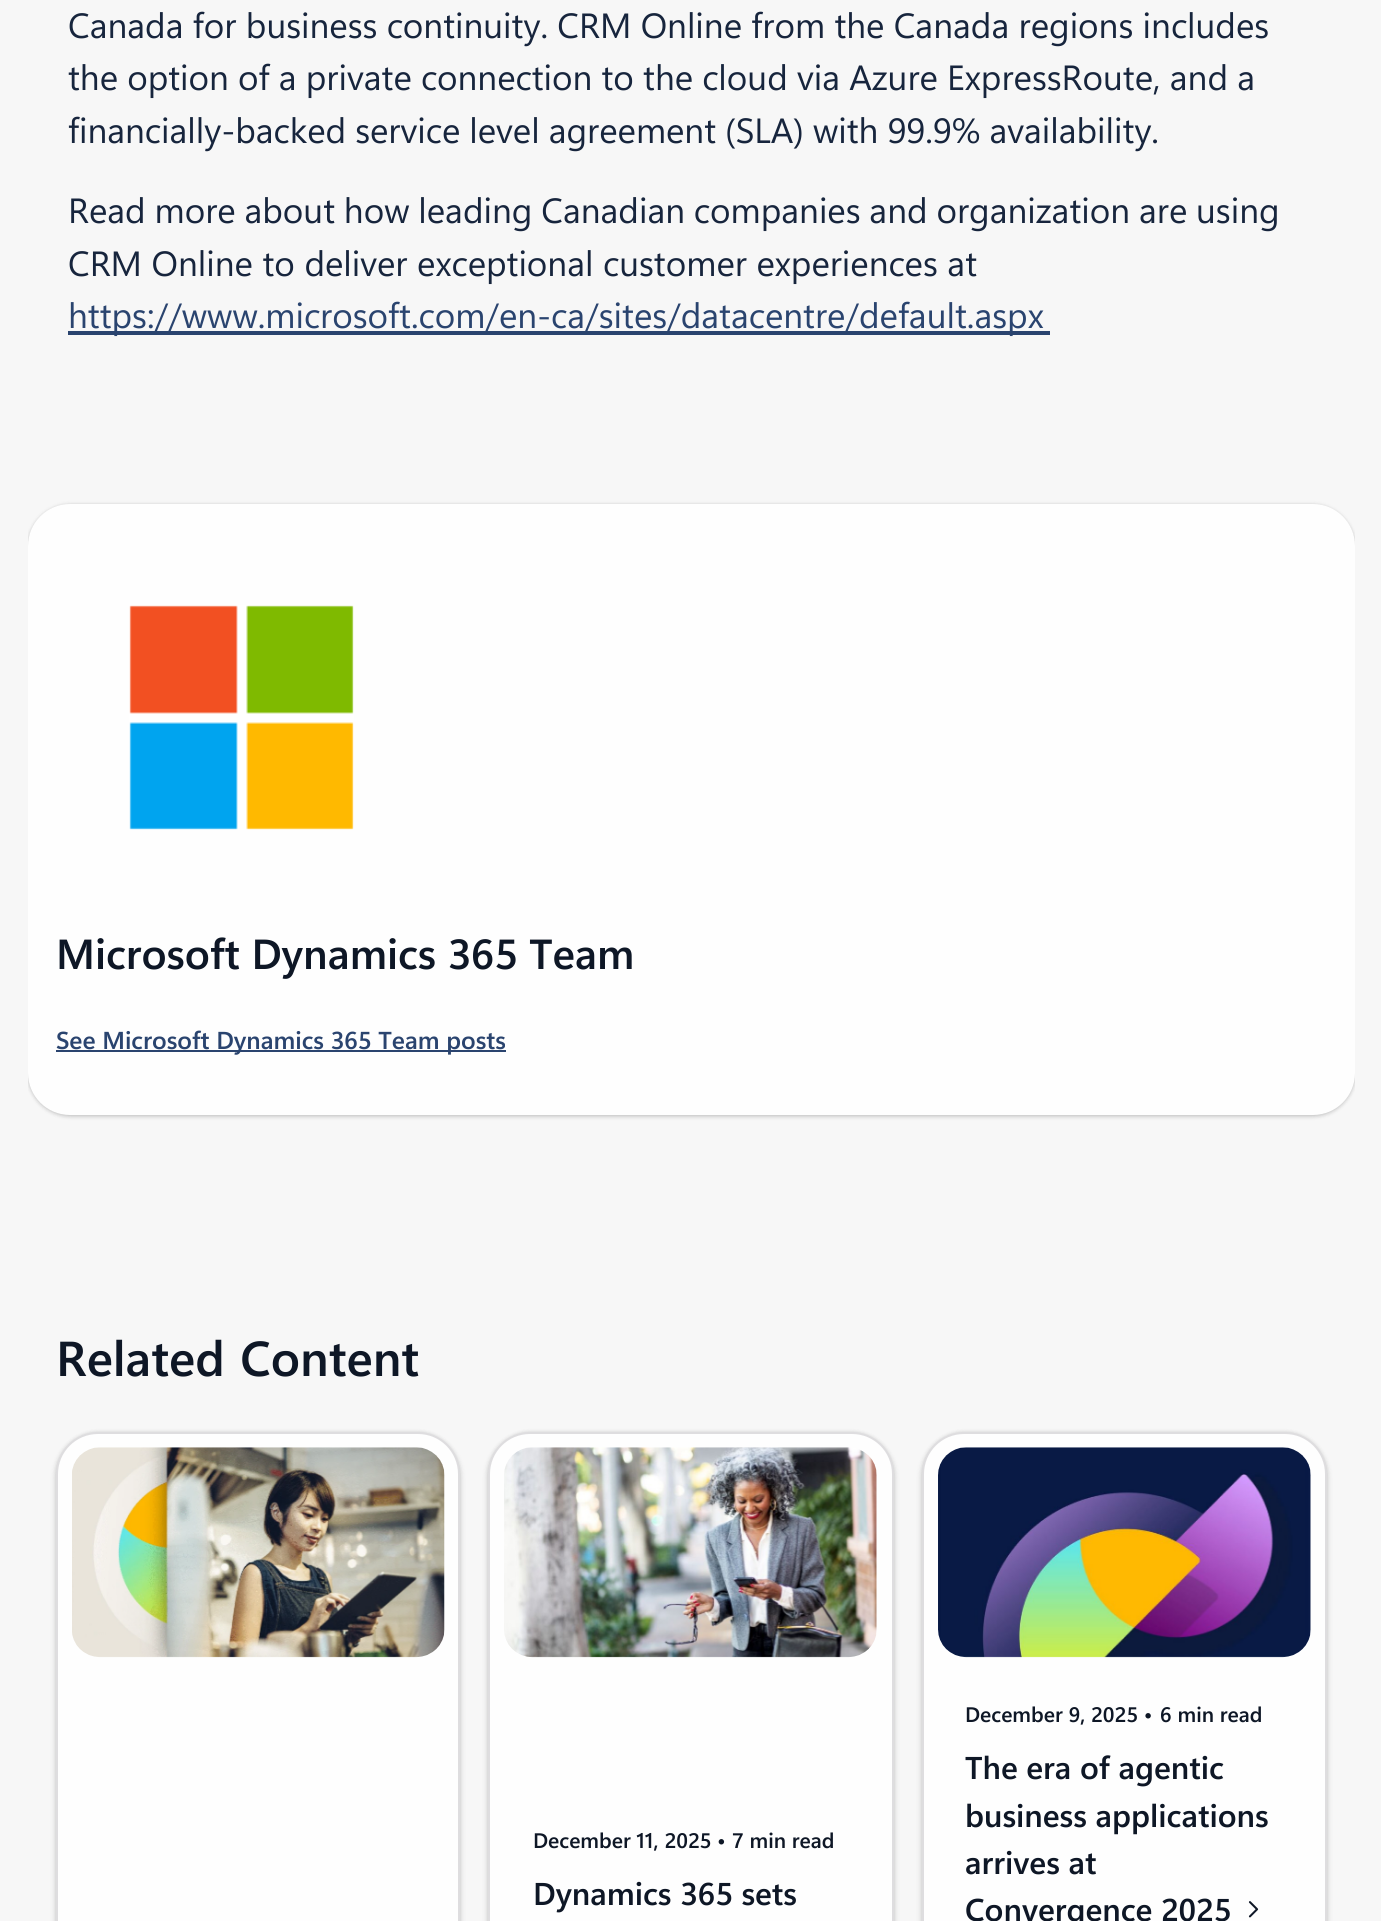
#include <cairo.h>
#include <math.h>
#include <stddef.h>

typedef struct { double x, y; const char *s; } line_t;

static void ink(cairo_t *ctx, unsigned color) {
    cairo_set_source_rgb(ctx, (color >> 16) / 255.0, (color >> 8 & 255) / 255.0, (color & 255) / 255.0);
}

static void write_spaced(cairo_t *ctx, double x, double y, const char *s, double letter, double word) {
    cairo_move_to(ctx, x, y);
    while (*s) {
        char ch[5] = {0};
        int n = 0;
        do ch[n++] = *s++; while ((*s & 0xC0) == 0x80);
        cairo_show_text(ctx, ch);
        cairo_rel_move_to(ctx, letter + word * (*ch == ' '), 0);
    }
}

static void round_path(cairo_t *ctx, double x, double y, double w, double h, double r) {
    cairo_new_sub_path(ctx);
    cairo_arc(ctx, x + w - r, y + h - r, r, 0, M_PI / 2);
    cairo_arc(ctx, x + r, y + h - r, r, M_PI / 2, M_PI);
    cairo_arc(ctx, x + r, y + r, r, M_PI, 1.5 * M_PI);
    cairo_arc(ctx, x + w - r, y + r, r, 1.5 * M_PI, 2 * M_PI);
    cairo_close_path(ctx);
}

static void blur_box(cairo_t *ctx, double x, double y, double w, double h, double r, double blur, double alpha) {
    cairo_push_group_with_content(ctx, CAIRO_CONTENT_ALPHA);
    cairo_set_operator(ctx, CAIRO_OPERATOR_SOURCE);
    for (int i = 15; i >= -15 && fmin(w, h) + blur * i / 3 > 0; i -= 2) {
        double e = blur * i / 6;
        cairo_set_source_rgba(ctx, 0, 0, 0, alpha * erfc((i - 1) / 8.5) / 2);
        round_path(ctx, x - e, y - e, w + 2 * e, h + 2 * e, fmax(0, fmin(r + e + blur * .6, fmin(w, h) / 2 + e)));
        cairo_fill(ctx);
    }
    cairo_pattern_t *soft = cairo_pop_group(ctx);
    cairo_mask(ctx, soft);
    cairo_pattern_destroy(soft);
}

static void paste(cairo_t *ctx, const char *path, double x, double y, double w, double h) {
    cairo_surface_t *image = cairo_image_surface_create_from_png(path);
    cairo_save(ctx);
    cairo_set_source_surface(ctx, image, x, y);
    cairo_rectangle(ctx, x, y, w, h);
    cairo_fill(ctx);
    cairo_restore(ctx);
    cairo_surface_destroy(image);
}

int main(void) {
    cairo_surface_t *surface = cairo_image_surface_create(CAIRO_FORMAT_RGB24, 1381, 1921);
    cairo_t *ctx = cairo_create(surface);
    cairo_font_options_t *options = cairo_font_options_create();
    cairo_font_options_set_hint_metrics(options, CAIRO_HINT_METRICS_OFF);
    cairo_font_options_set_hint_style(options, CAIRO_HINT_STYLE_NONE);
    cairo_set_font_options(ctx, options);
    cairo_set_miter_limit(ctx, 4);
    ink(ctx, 0xF7F7F7);
    cairo_paint(ctx);
    cairo_select_font_face(ctx, "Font", CAIRO_FONT_SLANT_NORMAL, CAIRO_FONT_WEIGHT_NORMAL);
    cairo_set_font_size(ctx, 35);
    ink(ctx, 0x17253D);
    write_spaced(ctx, 68, 38, "Canada for business continuity. CRM Online from the Canada regions includes", 0, -0.25);
    write_spaced(ctx, 68, 90, "the option of a private connection to the cloud via Azure ExpressRoute, and a", 0, -0.4);
    write_spaced(ctx, 68, 143, "financially-backed service level agreement (SLA) with 99.9% availability.", 0, -0.5);
    write_spaced(ctx, 68, 223, "Read more about how leading Canadian companies and organization are using", 0, -0.75);
    cairo_move_to(ctx, 68, 276);
    cairo_show_text(ctx, "CRM Online to deliver exceptional customer experiences at");
    ink(ctx, 0x2A446F);
    cairo_rectangle(ctx, 68, 331, 982, 4);
    cairo_fill(ctx);
    cairo_move_to(ctx, 68, 328);
    cairo_show_text(ctx, "https://www.microsoft.com/en-ca/sites/datacentre/default.aspx");
    cairo_save(ctx);
    cairo_rectangle(ctx, 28, 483, 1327, 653);
    cairo_clip(ctx);
    ink(ctx, 0x000000);
    blur_box(ctx, 28, 504, 1327, 611, 42, 2, 0.12);
    blur_box(ctx, 28, 506, 1327, 611, 42, 2, 0.14);
    cairo_restore(ctx);
    ink(ctx, 0xFEFEFE);
    round_path(ctx, 28, 504, 1327, 611, 42);
    cairo_fill(ctx);
    paste(ctx, "media/1.png", 129, 605, 225, 225);
    cairo_select_font_face(ctx, "Font SemiBold", CAIRO_FONT_SLANT_NORMAL, CAIRO_FONT_WEIGHT_NORMAL);
    cairo_set_font_size(ctx, 42);
    ink(ctx, 0x0E1726);
    cairo_move_to(ctx, 56, 969);
    cairo_show_text(ctx, "Microsoft Dynamics 365 Team");
    ink(ctx, 0x2A446F);
    cairo_rectangle(ctx, 56, 1050, 450, 2);
    cairo_fill(ctx);
    cairo_set_font_size(ctx, 24.5);
    cairo_move_to(ctx, 56, 1049);
    cairo_show_text(ctx, "See Microsoft Dynamics 365 Team posts");
    cairo_set_font_size(ctx, 49);
    ink(ctx, 0x0E1726);
    write_spaced(ctx, 56, 1376, "Related Content", 0, 2);
    ink(ctx, 0x000000);
    blur_box(ctx, 56, 1432, 404, 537, 42, 2, 0.12);
    blur_box(ctx, 56, 1435, 404, 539, 42, 3.5, 0.14);
    ink(ctx, 0xFEFEFE);
    round_path(ctx, 57, 1433, 402, 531, 41);
    cairo_fill_preserve(ctx);
    ink(ctx, 0xDEDDDF);
    cairo_stroke(ctx);
    paste(ctx, "media/2.png", 72, 1447, 373, 211);
    ink(ctx, 0x000000);
    blur_box(ctx, 488, 1432, 406, 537, 42, 2, 0.12);
    blur_box(ctx, 488, 1435, 406, 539, 42, 3.5, 0.14);
    ink(ctx, 0xFEFEFE);
    round_path(ctx, 489, 1433, 404, 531, 41);
    cairo_fill_preserve(ctx);
    ink(ctx, 0xDEDDDF);
    cairo_stroke(ctx);
    paste(ctx, "media/3.png", 504, 1447, 373, 211);
    cairo_set_font_size(ctx, 21);
    ink(ctx, 0x0E1726);
    cairo_move_to(ctx, 533, 1848);
    cairo_show_text(ctx, "December 11, 2025 •");
    cairo_move_to(ctx, 732, 1848);
    cairo_show_text(ctx, "7 min read");
    cairo_set_font_size(ctx, 31.5);
    cairo_move_to(ctx, 533, 1905);
    cairo_show_text(ctx, "Dynamics 365 sets");
    ink(ctx, 0x000000);
    blur_box(ctx, 922, 1432, 405, 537, 42, 2, 0.12);
    blur_box(ctx, 922, 1435, 405, 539, 42, 3.5, 0.14);
    ink(ctx, 0xFEFEFE);
    round_path(ctx, 923, 1433, 403, 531, 41);
    cairo_fill_preserve(ctx);
    ink(ctx, 0xDEDDDF);
    cairo_stroke(ctx);
    paste(ctx, "media/4.png", 938, 1447, 373, 211);
    cairo_set_font_size(ctx, 21);
    ink(ctx, 0x0E1726);
    cairo_move_to(ctx, 965, 1722);
    cairo_show_text(ctx, "December 9, 2025 •");
    cairo_move_to(ctx, 1160, 1722);
    cairo_show_text(ctx, "6 min read");
    cairo_set_font_size(ctx, 31.5);
    {
        static const line_t items[] = {
            {965, 1779, "The era of agentic"},
            {965, 1827, "business applications"},
            {965, 1874, "arrives at"},
            {965, 1921, "Convergence 2025"},
        };
        for (size_t i = 0; i < sizeof items / sizeof *items; i++) {
            cairo_move_to(ctx, items[i].x, items[i].y);
            cairo_show_text(ctx, items[i].s);
        }
    }
    paste(ctx, "media/5.png", 1248, 1901, 11, 17);
    cairo_surface_write_to_png(surface, "image.png");
    cairo_font_options_destroy(options);
    cairo_destroy(ctx);
    cairo_surface_destroy(surface);
    return 0;
}
